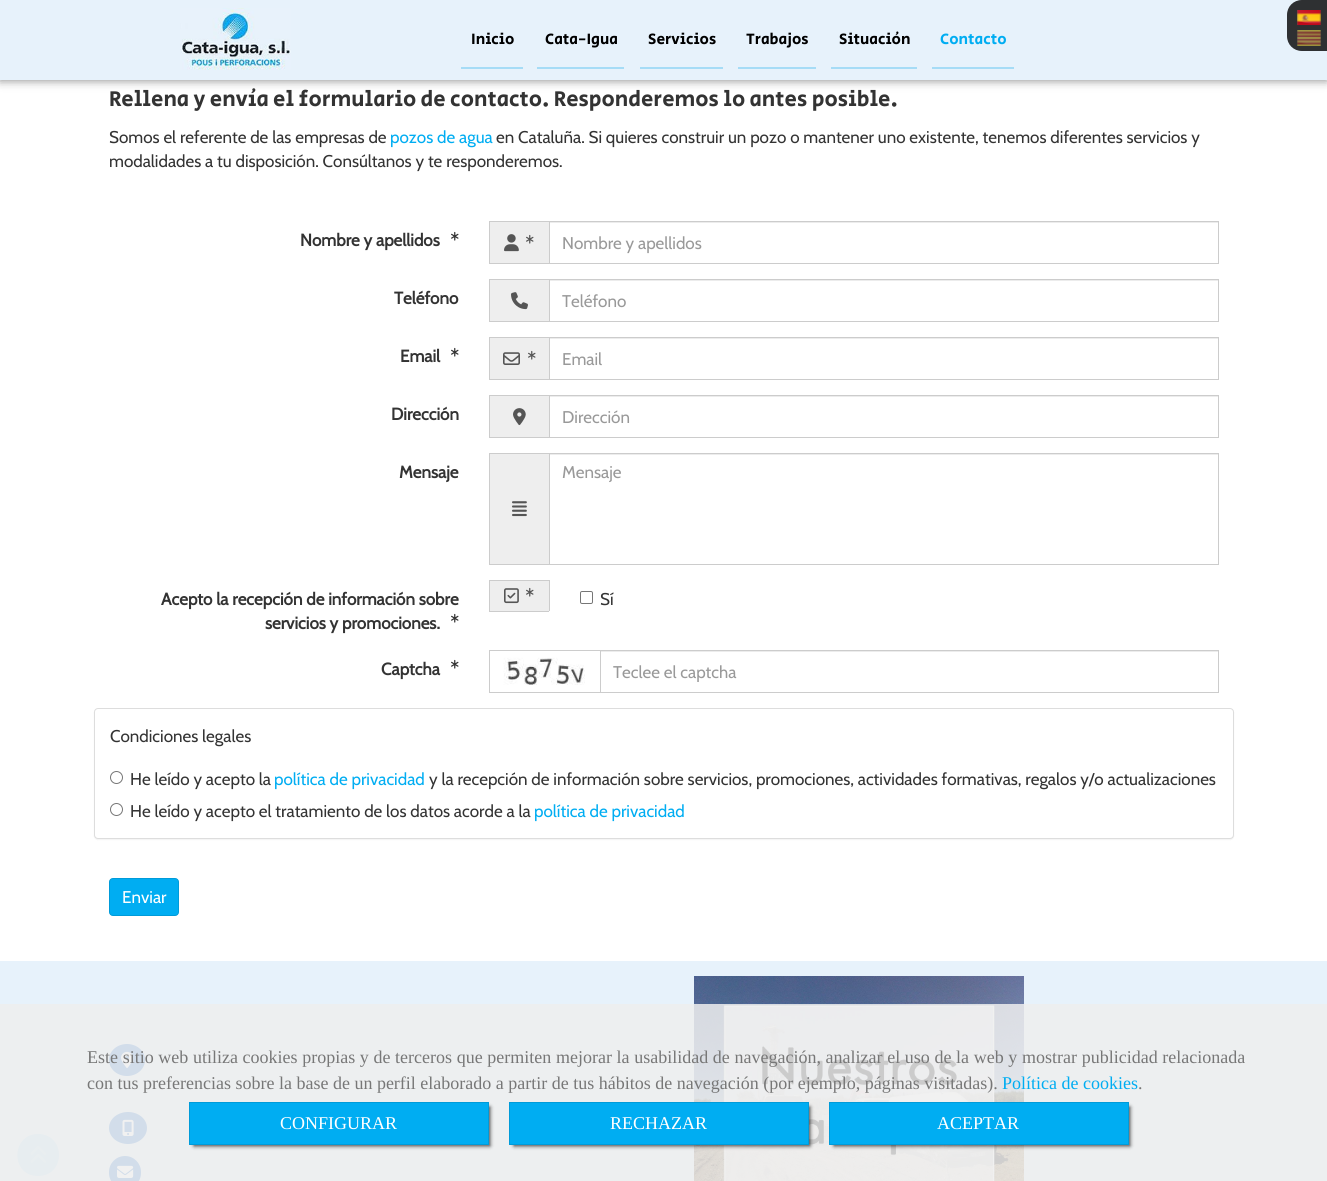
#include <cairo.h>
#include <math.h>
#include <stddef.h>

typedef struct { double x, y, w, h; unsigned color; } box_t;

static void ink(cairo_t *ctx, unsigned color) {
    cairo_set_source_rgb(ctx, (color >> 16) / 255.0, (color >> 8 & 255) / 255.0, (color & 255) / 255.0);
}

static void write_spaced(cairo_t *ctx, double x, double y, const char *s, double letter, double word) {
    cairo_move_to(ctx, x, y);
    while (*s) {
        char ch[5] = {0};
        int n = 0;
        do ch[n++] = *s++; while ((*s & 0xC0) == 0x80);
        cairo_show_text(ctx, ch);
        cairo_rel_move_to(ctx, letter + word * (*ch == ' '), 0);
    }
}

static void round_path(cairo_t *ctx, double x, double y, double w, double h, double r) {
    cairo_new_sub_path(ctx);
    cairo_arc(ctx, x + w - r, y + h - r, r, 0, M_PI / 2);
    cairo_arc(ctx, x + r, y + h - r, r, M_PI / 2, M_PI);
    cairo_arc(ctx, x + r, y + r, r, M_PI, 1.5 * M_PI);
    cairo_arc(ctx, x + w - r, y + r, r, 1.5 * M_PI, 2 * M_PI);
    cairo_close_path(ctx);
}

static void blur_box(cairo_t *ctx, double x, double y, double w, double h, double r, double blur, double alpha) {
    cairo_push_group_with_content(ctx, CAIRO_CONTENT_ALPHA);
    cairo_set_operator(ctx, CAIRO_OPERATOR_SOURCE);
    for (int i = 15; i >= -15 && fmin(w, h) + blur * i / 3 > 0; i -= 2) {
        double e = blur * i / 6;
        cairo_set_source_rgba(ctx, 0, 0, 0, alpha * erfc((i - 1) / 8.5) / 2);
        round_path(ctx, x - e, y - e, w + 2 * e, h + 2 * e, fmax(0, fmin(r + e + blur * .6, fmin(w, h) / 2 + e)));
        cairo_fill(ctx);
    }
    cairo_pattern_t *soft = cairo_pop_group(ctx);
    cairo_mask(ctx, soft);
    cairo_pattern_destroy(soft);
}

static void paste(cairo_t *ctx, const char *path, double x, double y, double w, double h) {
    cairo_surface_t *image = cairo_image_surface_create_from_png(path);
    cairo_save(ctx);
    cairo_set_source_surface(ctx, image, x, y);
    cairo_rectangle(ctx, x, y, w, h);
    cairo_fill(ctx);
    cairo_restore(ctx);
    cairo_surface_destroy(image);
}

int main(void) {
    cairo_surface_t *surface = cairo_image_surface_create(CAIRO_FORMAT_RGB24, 1327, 1181);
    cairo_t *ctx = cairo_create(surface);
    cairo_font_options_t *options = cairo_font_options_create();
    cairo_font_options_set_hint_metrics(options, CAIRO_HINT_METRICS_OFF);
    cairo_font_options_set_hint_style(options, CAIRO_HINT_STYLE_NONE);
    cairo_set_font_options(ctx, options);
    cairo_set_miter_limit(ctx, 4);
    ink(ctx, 0xFFFFFF);
    cairo_paint(ctx);
    ink(ctx, 0x000000);
    blur_box(ctx, 0, 0, 1327, 80, 0, 5, 0.5);
    ink(ctx, 0xE7F2FB);
    cairo_rectangle(ctx, 0, 0, 1327, 80);
    cairo_fill(ctx);
    paste(ctx, "media/1.png", 180, 8, 111, 62);
    cairo_select_font_face(ctx, "Secular One", CAIRO_FONT_SLANT_NORMAL, CAIRO_FONT_WEIGHT_NORMAL);
    cairo_set_font_size(ctx, 15.5);
    ink(ctx, 0x000000);
    cairo_move_to(ctx, 471, 44);
    cairo_show_text(ctx, "Inicio");
    ink(ctx, 0xA6DCF6);
    cairo_rectangle(ctx, 461, 67, 62, 2);
    cairo_fill(ctx);
    ink(ctx, 0x000000);
    cairo_move_to(ctx, 545, 44);
    cairo_show_text(ctx, "Cata-Igua");
    ink(ctx, 0xA6DCF6);
    cairo_rectangle(ctx, 537, 67, 87, 2);
    cairo_fill(ctx);
    ink(ctx, 0x000000);
    cairo_move_to(ctx, 648, 44);
    cairo_show_text(ctx, "Servicios");
    ink(ctx, 0xA6DCF6);
    cairo_rectangle(ctx, 640, 67, 83, 2);
    cairo_fill(ctx);
    ink(ctx, 0x000000);
    cairo_move_to(ctx, 746, 44);
    cairo_show_text(ctx, "Trabajos");
    ink(ctx, 0xA6DCF6);
    cairo_rectangle(ctx, 738, 67, 78, 2);
    cairo_fill(ctx);
    ink(ctx, 0x000000);
    cairo_move_to(ctx, 839, 44);
    cairo_show_text(ctx, "Situación");
    ink(ctx, 0xA6DCF6);
    cairo_rectangle(ctx, 831, 67, 86, 2);
    cairo_fill(ctx);
    ink(ctx, 0x00ADF2);
    cairo_move_to(ctx, 940, 44);
    cairo_show_text(ctx, "Contacto");
    ink(ctx, 0xA6DCF6);
    cairo_rectangle(ctx, 932, 67, 82, 2);
    cairo_fill(ctx);
    ink(ctx, 0x2E3032);
    cairo_new_path(ctx);
    cairo_move_to(ctx, 1302, 0);
    cairo_line_to(ctx, 1327, 0);
    cairo_line_to(ctx, 1327, 51);
    cairo_line_to(ctx, 1302, 51);
    cairo_curve_to(ctx, 1293.5, 51, 1287, 44.5, 1287, 36);
    cairo_line_to(ctx, 1287, 15);
    cairo_curve_to(ctx, 1287, 6.5, 1293.5, 0, 1302, 0);
    cairo_close_path(ctx);
    cairo_fill(ctx);
    paste(ctx, "media/2.png", 1297, 10, 24, 16);
    paste(ctx, "media/3.png", 1297, 30, 24, 16);
    cairo_set_font_size(ctx, 22);
    ink(ctx, 0x333333);
    cairo_move_to(ctx, 109, 106);
    cairo_show_text(ctx, "Rellena y envía el formulario de contacto. Responderemos lo antes posible.");
    cairo_select_font_face(ctx, "Cabin", CAIRO_FONT_SLANT_NORMAL, CAIRO_FONT_WEIGHT_NORMAL);
    cairo_set_font_size(ctx, 17);
    cairo_move_to(ctx, 109, 143);
    cairo_show_text(ctx, "Somos el referente de las empresas de");
    ink(ctx, 0x00ADF2);
    cairo_move_to(ctx, 390, 143);
    cairo_show_text(ctx, "pozos de agua");
    ink(ctx, 0x333333);
    cairo_move_to(ctx, 496, 143);
    cairo_show_text(ctx, "en Cataluña. Si quieres construir un pozo o mantener uno existente, tenemos diferentes servicios y");
    cairo_move_to(ctx, 109, 167);
    cairo_show_text(ctx, "modalidades a tu disposición. Consúltanos y te responderemos.");
    cairo_select_font_face(ctx, "Cabin", CAIRO_FONT_SLANT_NORMAL, CAIRO_FONT_WEIGHT_BOLD);
    cairo_move_to(ctx, 300, 246);
    cairo_show_text(ctx, "Nombre y apellidos");
    paste(ctx, "media/4.png", 451, 231, 8, 10);
    {
        static const box_t items[] = {
            {490, 222, 59, 41, 0xEEEEEE},
            {489, 221, 60, 1, 0xCCCCCC},
            {489, 263, 60, 1, 0xCCCCCC},
            {489, 221, 1, 43, 0xCCCCCC},
        };
        for (size_t i = 0; i < sizeof items / sizeof *items; i++) {
            ink(ctx, items[i].color);
            cairo_rectangle(ctx, items[i].x, items[i].y, items[i].w, items[i].h);
            cairo_fill(ctx);
        }
    }
    paste(ctx, "media/5.png", 504, 234, 15, 18);
    paste(ctx, "media/6.png", 526, 234, 8, 10);
    ink(ctx, 0xECECEC);
    cairo_rectangle(ctx, 550, 222, 668, 1);
    cairo_fill(ctx);
    cairo_rectangle(ctx, 549.5, 221.5, 669, 42);
    ink(ctx, 0xCCCCCC);
    cairo_set_line_width(ctx, 1);
    cairo_stroke(ctx);
    cairo_select_font_face(ctx, "Cabin", CAIRO_FONT_SLANT_NORMAL, CAIRO_FONT_WEIGHT_NORMAL);
    ink(ctx, 0x999999);
    cairo_move_to(ctx, 562, 249);
    cairo_show_text(ctx, "Nombre y apellidos");
    cairo_select_font_face(ctx, "Cabin", CAIRO_FONT_SLANT_NORMAL, CAIRO_FONT_WEIGHT_BOLD);
    ink(ctx, 0x333333);
    cairo_move_to(ctx, 394, 304);
    cairo_show_text(ctx, "Teléfono");
    {
        static const box_t items[] = {
            {490, 280, 59, 41, 0xEEEEEE},
            {489, 279, 60, 1, 0xCCCCCC},
            {489, 321, 60, 1, 0xCCCCCC},
            {489, 279, 1, 43, 0xCCCCCC},
        };
        for (size_t i = 0; i < sizeof items / sizeof *items; i++) {
            ink(ctx, items[i].color);
            cairo_rectangle(ctx, items[i].x, items[i].y, items[i].w, items[i].h);
            cairo_fill(ctx);
        }
    }
    paste(ctx, "media/7.png", 511, 292, 17, 18);
    ink(ctx, 0xECECEC);
    cairo_rectangle(ctx, 550, 280, 668, 1);
    cairo_fill(ctx);
    cairo_rectangle(ctx, 549.5, 279.5, 669, 42);
    ink(ctx, 0xCCCCCC);
    cairo_stroke(ctx);
    cairo_select_font_face(ctx, "Cabin", CAIRO_FONT_SLANT_NORMAL, CAIRO_FONT_WEIGHT_NORMAL);
    ink(ctx, 0x999999);
    cairo_move_to(ctx, 562, 307);
    cairo_show_text(ctx, "Teléfono");
    cairo_select_font_face(ctx, "Cabin", CAIRO_FONT_SLANT_NORMAL, CAIRO_FONT_WEIGHT_BOLD);
    ink(ctx, 0x333333);
    cairo_move_to(ctx, 400, 362);
    cairo_show_text(ctx, "Email");
    paste(ctx, "media/4.png", 451, 347, 8, 10);
    {
        static const box_t items[] = {
            {490, 338, 59, 41, 0xEEEEEE},
            {489, 337, 60, 1, 0xCCCCCC},
            {489, 379, 60, 1, 0xCCCCCC},
            {489, 337, 1, 43, 0xCCCCCC},
        };
        for (size_t i = 0; i < sizeof items / sizeof *items; i++) {
            ink(ctx, items[i].color);
            cairo_rectangle(ctx, items[i].x, items[i].y, items[i].w, items[i].h);
            cairo_fill(ctx);
        }
    }
    paste(ctx, "media/8.png", 503, 352, 17, 13);
    paste(ctx, "media/6.png", 528, 350, 8, 10);
    ink(ctx, 0xECECEC);
    cairo_rectangle(ctx, 550, 338, 668, 1);
    cairo_fill(ctx);
    cairo_rectangle(ctx, 549.5, 337.5, 669, 42);
    ink(ctx, 0xCCCCCC);
    cairo_stroke(ctx);
    cairo_select_font_face(ctx, "Cabin", CAIRO_FONT_SLANT_NORMAL, CAIRO_FONT_WEIGHT_NORMAL);
    ink(ctx, 0x999999);
    cairo_move_to(ctx, 562, 365);
    cairo_show_text(ctx, "Email");
    cairo_select_font_face(ctx, "Cabin", CAIRO_FONT_SLANT_NORMAL, CAIRO_FONT_WEIGHT_BOLD);
    ink(ctx, 0x333333);
    cairo_move_to(ctx, 391, 420);
    cairo_show_text(ctx, "Dirección");
    {
        static const box_t items[] = {
            {490, 396, 59, 41, 0xEEEEEE},
            {489, 395, 60, 1, 0xCCCCCC},
            {489, 437, 60, 1, 0xCCCCCC},
            {489, 395, 1, 43, 0xCCCCCC},
        };
        for (size_t i = 0; i < sizeof items / sizeof *items; i++) {
            ink(ctx, items[i].color);
            cairo_rectangle(ctx, items[i].x, items[i].y, items[i].w, items[i].h);
            cairo_fill(ctx);
        }
    }
    paste(ctx, "media/9.png", 513, 408, 13, 18);
    ink(ctx, 0xECECEC);
    cairo_rectangle(ctx, 550, 396, 668, 1);
    cairo_fill(ctx);
    cairo_rectangle(ctx, 549.5, 395.5, 669, 42);
    ink(ctx, 0xCCCCCC);
    cairo_stroke(ctx);
    cairo_select_font_face(ctx, "Cabin", CAIRO_FONT_SLANT_NORMAL, CAIRO_FONT_WEIGHT_NORMAL);
    ink(ctx, 0x999999);
    cairo_move_to(ctx, 562, 423);
    cairo_show_text(ctx, "Dirección");
    cairo_select_font_face(ctx, "Cabin", CAIRO_FONT_SLANT_NORMAL, CAIRO_FONT_WEIGHT_BOLD);
    ink(ctx, 0x333333);
    cairo_move_to(ctx, 399, 478);
    cairo_show_text(ctx, "Mensaje");
    {
        static const box_t items[] = {
            {490, 454, 59, 110, 0xEEEEEE},
            {489, 453, 60, 1, 0xCCCCCC},
            {489, 564, 60, 1, 0xCCCCCC},
            {489, 453, 1, 112, 0xCCCCCC},
        };
        for (size_t i = 0; i < sizeof items / sizeof *items; i++) {
            ink(ctx, items[i].color);
            cairo_rectangle(ctx, items[i].x, items[i].y, items[i].w, items[i].h);
            cairo_fill(ctx);
        }
    }
    paste(ctx, "media/10.png", 512, 501, 15, 16);
    ink(ctx, 0xECECEC);
    cairo_rectangle(ctx, 550, 454, 668, 1);
    cairo_fill(ctx);
    cairo_rectangle(ctx, 549.5, 453.5, 669, 111);
    ink(ctx, 0xCCCCCC);
    cairo_stroke(ctx);
    cairo_select_font_face(ctx, "Cabin", CAIRO_FONT_SLANT_NORMAL, CAIRO_FONT_WEIGHT_NORMAL);
    ink(ctx, 0x999999);
    cairo_move_to(ctx, 562, 478);
    cairo_show_text(ctx, "Mensaje");
    cairo_select_font_face(ctx, "Cabin", CAIRO_FONT_SLANT_NORMAL, CAIRO_FONT_WEIGHT_BOLD);
    ink(ctx, 0x333333);
    cairo_move_to(ctx, 161, 605);
    cairo_show_text(ctx, "Acepto la recepción de información sobre");
    cairo_move_to(ctx, 265, 629);
    cairo_show_text(ctx, "servicios y promociones.");
    paste(ctx, "media/4.png", 451, 613, 8, 10);
    {
        static const box_t items[] = {
            {490, 581, 59, 30, 0xEEEEEE},
            {489, 580, 60, 1, 0xCCCCCC},
            {489, 611, 60, 1, 0xCCCCCC},
            {489, 580, 1, 32, 0xCCCCCC},
        };
        for (size_t i = 0; i < sizeof items / sizeof *items; i++) {
            ink(ctx, items[i].color);
            cairo_rectangle(ctx, items[i].x, items[i].y, items[i].w, items[i].h);
            cairo_fill(ctx);
        }
    }
    paste(ctx, "media/11.png", 504, 588, 15, 16);
    paste(ctx, "media/6.png", 526, 587, 8, 10);
    cairo_rectangle(ctx, 549, 580, 1, 31);
    cairo_fill(ctx);
    round_path(ctx, 580.5, 591.5, 12, 12, 1.5);
    ink(ctx, 0x767676);
    cairo_stroke(ctx);
    cairo_select_font_face(ctx, "Cabin", CAIRO_FONT_SLANT_NORMAL, CAIRO_FONT_WEIGHT_NORMAL);
    ink(ctx, 0x333333);
    cairo_move_to(ctx, 600, 605);
    cairo_show_text(ctx, "Sí");
    cairo_select_font_face(ctx, "Cabin", CAIRO_FONT_SLANT_NORMAL, CAIRO_FONT_WEIGHT_BOLD);
    cairo_move_to(ctx, 381, 675);
    cairo_show_text(ctx, "Captcha");
    paste(ctx, "media/4.png", 451, 659, 8, 10);
    {
        static const box_t items[] = {
            {489, 650, 111, 1, 0xCCCCCC},
            {489, 692, 111, 1, 0xCCCCCC},
            {489, 650, 1, 43, 0xCCCCCC},
        };
        for (size_t i = 0; i < sizeof items / sizeof *items; i++) {
            ink(ctx, items[i].color);
            cairo_rectangle(ctx, items[i].x, items[i].y, items[i].w, items[i].h);
            cairo_fill(ctx);
        }
    }
    paste(ctx, "media/12.png", 490, 651, 110, 41);
    ink(ctx, 0xECECEC);
    cairo_rectangle(ctx, 601, 651, 617, 1);
    cairo_fill(ctx);
    cairo_rectangle(ctx, 600.5, 650.5, 618, 42);
    ink(ctx, 0xCCCCCC);
    cairo_stroke(ctx);
    cairo_save(ctx);
    cairo_rectangle(ctx, 613, 662, 593, 20);
    cairo_clip(ctx);
    cairo_select_font_face(ctx, "Cabin", CAIRO_FONT_SLANT_NORMAL, CAIRO_FONT_WEIGHT_NORMAL);
    ink(ctx, 0x999999);
    cairo_move_to(ctx, 613, 678);
    cairo_show_text(ctx, "Teclee el captcha");
    cairo_restore(ctx);
    ink(ctx, 0x000000);
    blur_box(ctx, 94, 709, 1140, 131, 4, 0.5, 0.05);
    ink(ctx, 0xFFFFFF);
    round_path(ctx, 94.5, 708.5, 1139, 130, 3.5);
    cairo_fill_preserve(ctx);
    ink(ctx, 0xDDDDDD);
    cairo_stroke(ctx);
    cairo_select_font_face(ctx, "Cabin", CAIRO_FONT_SLANT_NORMAL, CAIRO_FONT_WEIGHT_NORMAL);
    ink(ctx, 0x333333);
    cairo_move_to(ctx, 110, 742);
    cairo_show_text(ctx, "Condiciones legales");
    cairo_new_path(ctx);
    cairo_arc(ctx, 116.5, 777.5, 6, 0, 2 * M_PI);
    ink(ctx, 0x767676);
    cairo_stroke(ctx);
    ink(ctx, 0x333333);
    cairo_move_to(ctx, 130, 785);
    cairo_show_text(ctx, "He leído y acepto la");
    ink(ctx, 0x00ADF2);
    cairo_move_to(ctx, 274, 785);
    cairo_show_text(ctx, "política de privacidad");
    ink(ctx, 0x333333);
    cairo_move_to(ctx, 429, 785);
    cairo_show_text(ctx, "y la recepción de información sobre servicios, promociones, actividades formativas, regalos y/o actualizaciones");
    cairo_new_path(ctx);
    cairo_arc(ctx, 116.5, 809.5, 6, 0, 2 * M_PI);
    ink(ctx, 0x767676);
    cairo_stroke(ctx);
    ink(ctx, 0x333333);
    cairo_move_to(ctx, 130, 817);
    cairo_show_text(ctx, "He leído y acepto el tratamiento de los datos acorde a la");
    ink(ctx, 0x00ADF2);
    cairo_move_to(ctx, 534, 817);
    cairo_show_text(ctx, "política de privacidad");
    round_path(ctx, 109.5, 878.5, 69, 37, 3.5);
    cairo_fill_preserve(ctx);
    ink(ctx, 0x009BD9);
    cairo_stroke(ctx);
    ink(ctx, 0xFFFFFF);
    cairo_move_to(ctx, 122, 903);
    cairo_show_text(ctx, "Enviar");
    ink(ctx, 0xE7F2FB);
    cairo_rectangle(ctx, 0, 961, 1327, 220);
    cairo_fill(ctx);
    ink(ctx, 0x2E7AD0);
    cairo_new_path(ctx);
    cairo_move_to(ctx, 127, 1044);
    cairo_curve_to(ctx, 137, 1044, 145, 1051, 145, 1060);
    cairo_curve_to(ctx, 145, 1069, 137, 1076, 127, 1076);
    cairo_curve_to(ctx, 117, 1076, 109, 1069, 109, 1060);
    cairo_curve_to(ctx, 109, 1051, 117, 1044, 127, 1044);
    cairo_close_path(ctx);
    cairo_fill(ctx);
    paste(ctx, "media/13.png", 121, 1051, 13, 17);
    cairo_new_path(ctx);
    cairo_move_to(ctx, 128, 1112);
    cairo_curve_to(ctx, 138.5, 1112, 147, 1119, 147, 1128);
    cairo_curve_to(ctx, 147, 1137, 138.5, 1144, 128, 1144);
    cairo_curve_to(ctx, 117.5, 1144, 109, 1137, 109, 1128);
    cairo_curve_to(ctx, 109, 1119, 117.5, 1112, 128, 1112);
    cairo_close_path(ctx);
    cairo_fill(ctx);
    paste(ctx, "media/14.png", 122, 1119, 12, 17);
    round_path(ctx, 109, 1156, 32, 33, 16);
    cairo_fill(ctx);
    paste(ctx, "media/15.png", 117, 1165, 17, 13);
    paste(ctx, "media/16.png", 694, 976, 330, 205);
    ink(ctx, 0xB9E4F9);
    cairo_new_path(ctx);
    cairo_move_to(ctx, 38, 1176);
    cairo_curve_to(ctx, 66, 1176, 66, 1134, 38, 1134);
    cairo_curve_to(ctx, 11, 1134, 10, 1176, 38, 1176);
    cairo_close_path(ctx);
    cairo_fill(ctx);
    paste(ctx, "media/17.png", 30, 1146, 16, 17);
    cairo_set_source_rgba(ctx, 0.933, 0.933, 0.933, 0.85);
    cairo_rectangle(ctx, 0, 1004, 1327, 177);
    cairo_fill(ctx);
    cairo_select_font_face(ctx, "Liberation Serif", CAIRO_FONT_SLANT_NORMAL, CAIRO_FONT_WEIGHT_NORMAL);
    cairo_set_font_size(ctx, 18);
    ink(ctx, 0x777777);
    write_spaced(ctx, 87, 1063, "Este sitio web utiliza cookies propias y de terceros que permiten mejorar la usabilidad de navegación, analizar el uso de la web y mostrar publicidad relacionada", 0, 0.15);
    cairo_move_to(ctx, 87, 1089);
    cairo_show_text(ctx, "con tus preferencias sobre la base de un perfil elaborado a partir de tus hábitos de navegación (por ejemplo, páginas visitadas).");
    ink(ctx, 0x00ADF2);
    cairo_move_to(ctx, 1002, 1089);
    cairo_show_text(ctx, "Política de cookies");
    ink(ctx, 0x777777);
    cairo_move_to(ctx, 1138, 1089);
    cairo_show_text(ctx, ".");
    ink(ctx, 0x000000);
    blur_box(ctx, 194, 1107, 296, 39, 0, 2, 0.75);
    ink(ctx, 0x00ADF2);
    cairo_rectangle(ctx, 189.5, 1102.5, 299, 42);
    cairo_fill_preserve(ctx);
    ink(ctx, 0x009BD9);
    cairo_stroke(ctx);
    ink(ctx, 0xFFFFFF);
    cairo_move_to(ctx, 280, 1129);
    cairo_show_text(ctx, "CONFIGURAR");
    ink(ctx, 0x000000);
    blur_box(ctx, 514, 1107, 296, 39, 0, 2, 0.75);
    ink(ctx, 0x00ADF2);
    cairo_rectangle(ctx, 509.5, 1102.5, 299, 42);
    cairo_fill_preserve(ctx);
    ink(ctx, 0x009BD9);
    cairo_stroke(ctx);
    ink(ctx, 0xFFFFFF);
    cairo_move_to(ctx, 610, 1129);
    cairo_show_text(ctx, "RECHAZAR");
    ink(ctx, 0x000000);
    blur_box(ctx, 834, 1107, 296, 39, 0, 2, 0.75);
    ink(ctx, 0x00ADF2);
    cairo_rectangle(ctx, 829.5, 1102.5, 299, 42);
    cairo_fill_preserve(ctx);
    ink(ctx, 0x009BD9);
    cairo_stroke(ctx);
    ink(ctx, 0xFFFFFF);
    cairo_move_to(ctx, 937, 1129);
    cairo_show_text(ctx, "ACEPTAR");
    cairo_surface_write_to_png(surface, "image.png");
    cairo_font_options_destroy(options);
    cairo_destroy(ctx);
    cairo_surface_destroy(surface);
    return 0;
}
